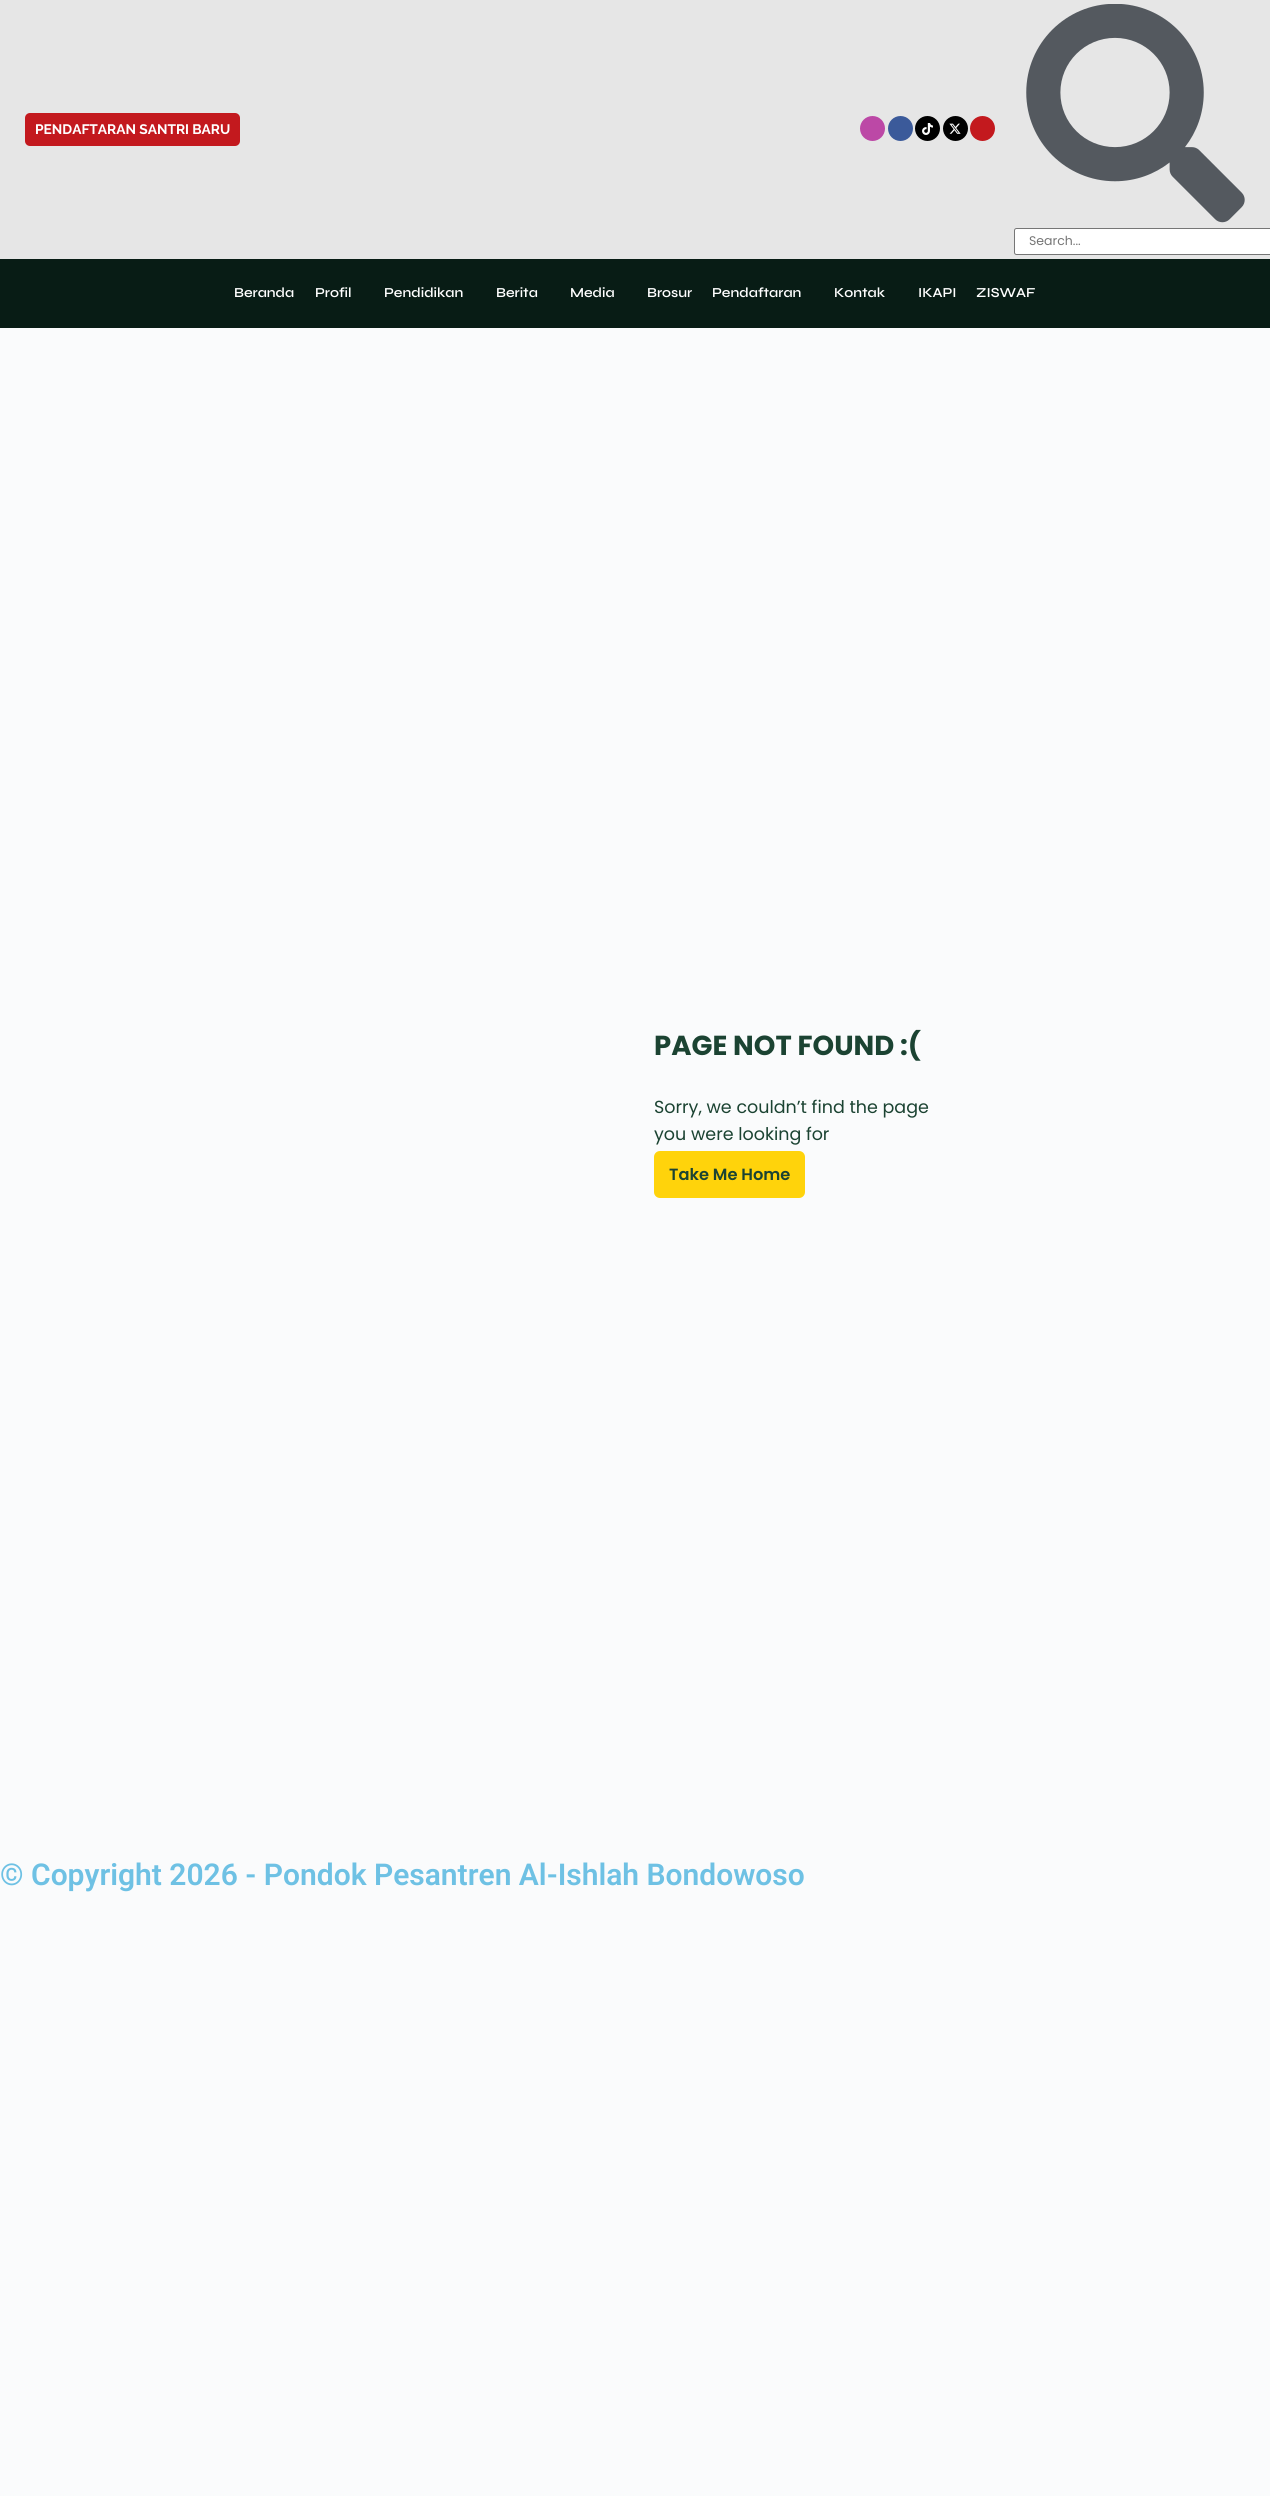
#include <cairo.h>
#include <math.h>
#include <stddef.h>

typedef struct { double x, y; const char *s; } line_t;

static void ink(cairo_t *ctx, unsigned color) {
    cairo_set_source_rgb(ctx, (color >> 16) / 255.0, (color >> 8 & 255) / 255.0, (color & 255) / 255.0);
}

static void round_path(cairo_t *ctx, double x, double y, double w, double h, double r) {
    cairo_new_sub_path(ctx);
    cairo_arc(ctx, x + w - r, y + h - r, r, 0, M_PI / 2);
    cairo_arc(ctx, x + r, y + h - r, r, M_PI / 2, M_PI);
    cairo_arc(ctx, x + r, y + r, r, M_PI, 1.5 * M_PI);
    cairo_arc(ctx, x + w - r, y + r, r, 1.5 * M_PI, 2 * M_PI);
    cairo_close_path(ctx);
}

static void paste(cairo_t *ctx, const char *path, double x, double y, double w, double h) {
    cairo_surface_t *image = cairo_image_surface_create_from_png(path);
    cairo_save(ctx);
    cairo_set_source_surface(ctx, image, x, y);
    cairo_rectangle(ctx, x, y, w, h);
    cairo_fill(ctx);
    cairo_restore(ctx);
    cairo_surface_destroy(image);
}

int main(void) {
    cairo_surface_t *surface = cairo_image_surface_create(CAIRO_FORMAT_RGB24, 1270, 2496);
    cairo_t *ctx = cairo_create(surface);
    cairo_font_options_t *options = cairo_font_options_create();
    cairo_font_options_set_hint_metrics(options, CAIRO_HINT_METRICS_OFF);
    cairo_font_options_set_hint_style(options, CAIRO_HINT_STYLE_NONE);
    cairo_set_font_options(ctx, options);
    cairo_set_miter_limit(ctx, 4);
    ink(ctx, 0xFAFBFC);
    cairo_paint(ctx);
    ink(ctx, 0xE6E6E6);
    cairo_rectangle(ctx, 0, 0, 1270, 259);
    cairo_fill(ctx);
    ink(ctx, 0xC3191E);
    round_path(ctx, 25, 113, 215, 33, 5);
    cairo_fill(ctx);
    cairo_select_font_face(ctx, "Raleway", CAIRO_FONT_SLANT_NORMAL, CAIRO_FONT_WEIGHT_BOLD);
    cairo_set_font_size(ctx, 13.75);
    ink(ctx, 0xFFFFFF);
    cairo_move_to(ctx, 35, 134);
    cairo_show_text(ctx, "PENDAFTARAN SANTRI BARU");
    ink(ctx, 0xBC48A6);
    cairo_new_path(ctx);
    cairo_arc(ctx, 872.5, 128.5, 12.5, 0, 2 * M_PI);
    cairo_fill(ctx);
    ink(ctx, 0x3B5A9A);
    cairo_arc(ctx, 900.5, 128.5, 12.5, 0, 2 * M_PI);
    cairo_fill(ctx);
    ink(ctx, 0x000000);
    cairo_arc(ctx, 927.5, 128.5, 12.5, 0, 2 * M_PI);
    cairo_fill(ctx);
    paste(ctx, "media/1.png", 922, 123, 11, 12);
    cairo_arc(ctx, 955.5, 128.5, 12.5, 0, 2 * M_PI);
    cairo_fill(ctx);
    paste(ctx, "media/2.png", 949, 123, 12, 11);
    ink(ctx, 0xC3191E);
    cairo_arc(ctx, 982.5, 128.5, 12.5, 0, 2 * M_PI);
    cairo_fill(ctx);
    paste(ctx, "media/3.png", 1026, 4, 219, 219);
    ink(ctx, 0xFFFFFF);
    round_path(ctx, 1014.5, 228.5, 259, 26, 2);
    cairo_fill_preserve(ctx);
    ink(ctx, 0x767676);
    cairo_set_line_width(ctx, 1);
    cairo_stroke(ctx);
    cairo_select_font_face(ctx, "Poppins", CAIRO_FONT_SLANT_NORMAL, CAIRO_FONT_WEIGHT_NORMAL);
    cairo_set_font_size(ctx, 12.5);
    ink(ctx, 0x757575);
    cairo_move_to(ctx, 1029, 245);
    cairo_show_text(ctx, "Search...");
    ink(ctx, 0x081C15);
    cairo_rectangle(ctx, 0, 259, 1270, 69);
    cairo_fill(ctx);
    cairo_select_font_face(ctx, "Syne SemiBold", CAIRO_FONT_SLANT_NORMAL, CAIRO_FONT_WEIGHT_NORMAL);
    cairo_set_font_size(ctx, 13.75);
    ink(ctx, 0xFFFFFF);
    {
        static const line_t items[] = {
            {234, 297, "Beranda"},
            {315, 297, "Profil"},
            {384, 297, "Pendidikan"},
            {496, 297, "Berita"},
            {570, 297, "Media"},
            {647, 297, "Brosur"},
            {712, 297, "Pendaftaran"},
            {834, 297, "Kontak"},
            {918, 297, "IKAPI"},
            {976, 297, "ZISWAF"},
        };
        for (size_t i = 0; i < sizeof items / sizeof *items; i++) {
            cairo_move_to(ctx, items[i].x, items[i].y);
            cairo_show_text(ctx, items[i].s);
        }
    }
    cairo_select_font_face(ctx, "Poppins", CAIRO_FONT_SLANT_NORMAL, CAIRO_FONT_WEIGHT_BOLD);
    cairo_set_font_size(ctx, 27.5);
    ink(ctx, 0x1B4332);
    cairo_move_to(ctx, 654, 1055);
    cairo_show_text(ctx, "PAGE NOT FOUND :(");
    cairo_select_font_face(ctx, "Poppins", CAIRO_FONT_SLANT_NORMAL, CAIRO_FONT_WEIGHT_NORMAL);
    cairo_set_font_size(ctx, 17.5);
    cairo_move_to(ctx, 654, 1113);
    cairo_show_text(ctx, "Sorry, we couldn’t find the page");
    cairo_move_to(ctx, 654, 1140);
    cairo_show_text(ctx, "you were looking for");
    ink(ctx, 0xFFD30B);
    round_path(ctx, 654, 1151, 151, 47, 6);
    cairo_fill(ctx);
    cairo_select_font_face(ctx, "Poppins SemiBold", CAIRO_FONT_SLANT_NORMAL, CAIRO_FONT_WEIGHT_NORMAL);
    cairo_set_font_size(ctx, 16.25);
    ink(ctx, 0x1B4332);
    cairo_move_to(ctx, 669, 1180);
    cairo_show_text(ctx, "Take Me Home");
    cairo_select_font_face(ctx, "Roboto SemiBold", CAIRO_FONT_SLANT_NORMAL, CAIRO_FONT_WEIGHT_NORMAL);
    cairo_set_font_size(ctx, 30);
    ink(ctx, 0x6EC1E4);
    cairo_move_to(ctx, 0, 1885);
    cairo_show_text(ctx, "© Copyright 2026 - Pondok Pesantren Al-Ishlah Bondowoso");
    cairo_surface_write_to_png(surface, "image.png");
    cairo_font_options_destroy(options);
    cairo_destroy(ctx);
    cairo_surface_destroy(surface);
    return 0;
}
